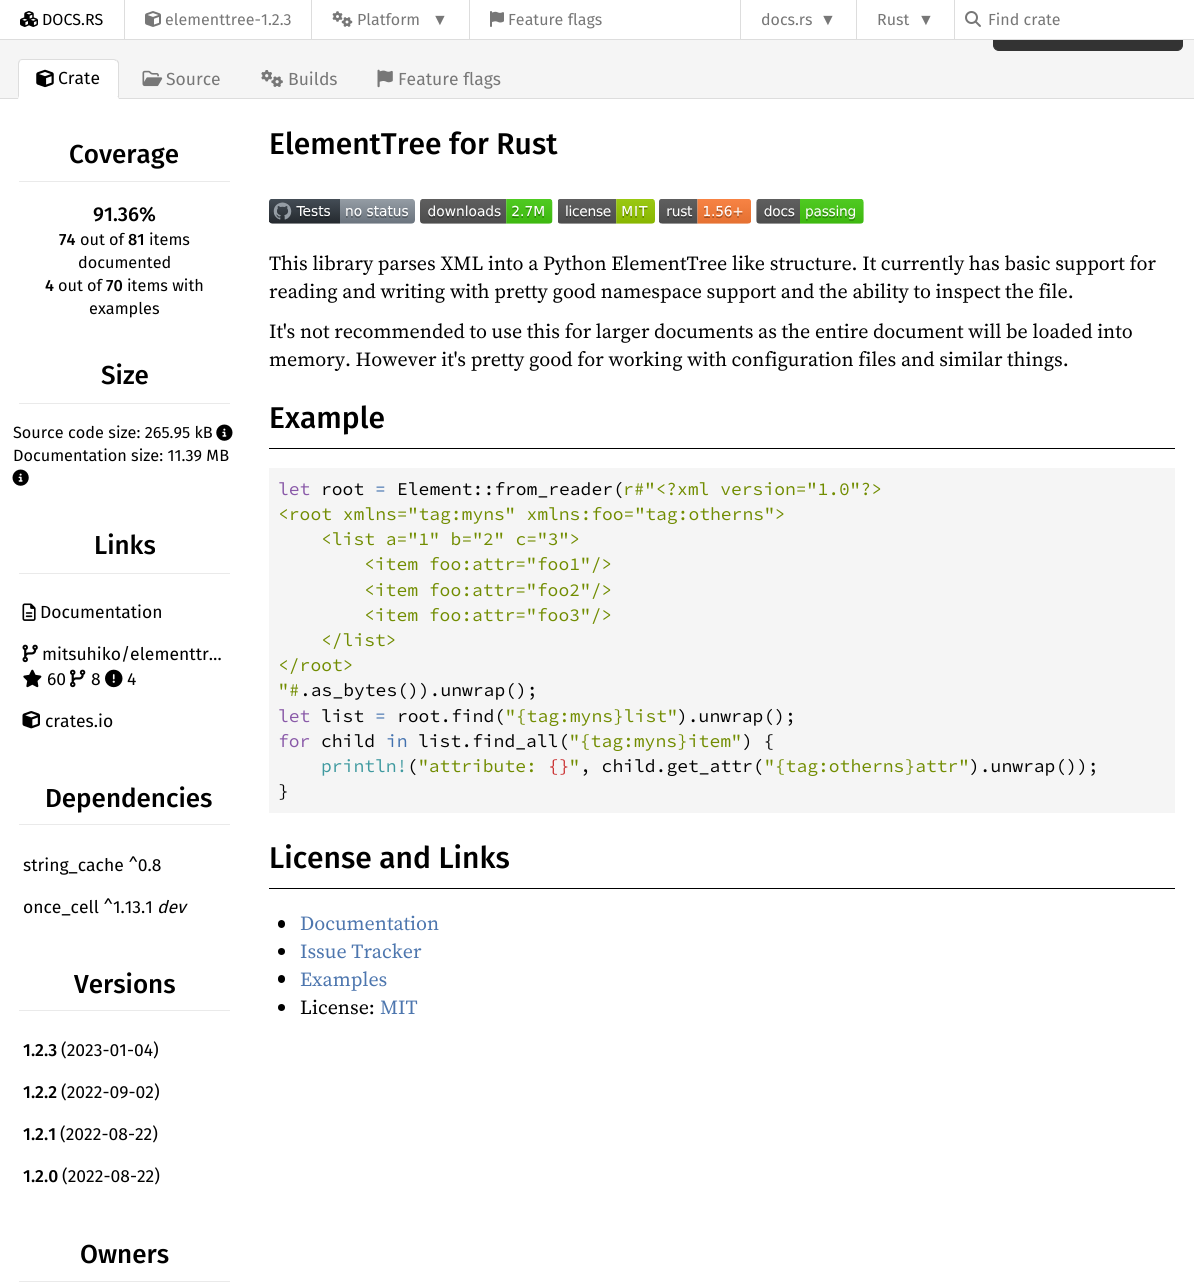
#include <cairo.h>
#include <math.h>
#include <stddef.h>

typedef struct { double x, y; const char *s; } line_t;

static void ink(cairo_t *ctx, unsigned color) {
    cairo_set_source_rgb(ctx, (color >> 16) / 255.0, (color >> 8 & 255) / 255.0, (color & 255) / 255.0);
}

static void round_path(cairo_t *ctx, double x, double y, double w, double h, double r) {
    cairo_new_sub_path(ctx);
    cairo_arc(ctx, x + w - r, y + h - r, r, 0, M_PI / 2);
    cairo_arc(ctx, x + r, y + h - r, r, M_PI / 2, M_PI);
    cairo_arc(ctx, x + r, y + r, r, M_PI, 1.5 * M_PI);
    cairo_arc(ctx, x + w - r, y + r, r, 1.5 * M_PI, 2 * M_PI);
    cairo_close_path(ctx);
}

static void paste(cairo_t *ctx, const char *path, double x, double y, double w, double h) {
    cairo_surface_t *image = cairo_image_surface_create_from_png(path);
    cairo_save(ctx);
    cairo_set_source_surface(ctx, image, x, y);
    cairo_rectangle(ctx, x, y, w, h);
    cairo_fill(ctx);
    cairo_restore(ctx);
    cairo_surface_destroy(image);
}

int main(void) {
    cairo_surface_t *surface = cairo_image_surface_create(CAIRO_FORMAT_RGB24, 1194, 1282);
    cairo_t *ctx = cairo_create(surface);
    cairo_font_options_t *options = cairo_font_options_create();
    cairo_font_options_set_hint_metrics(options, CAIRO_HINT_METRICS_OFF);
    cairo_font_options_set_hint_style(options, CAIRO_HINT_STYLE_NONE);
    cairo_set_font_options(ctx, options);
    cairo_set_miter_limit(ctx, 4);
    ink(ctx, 0xFFFFFF);
    cairo_paint(ctx);
    ink(ctx, 0xF5F5F5);
    cairo_rectangle(ctx, 0, 40, 1194, 58);
    cairo_fill(ctx);
    ink(ctx, 0x333333);
    round_path(ctx, 993.5, -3.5, 189, 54, 5.5);
    cairo_fill_preserve(ctx);
    cairo_set_line_width(ctx, 1);
    cairo_stroke(ctx);
    ink(ctx, 0xFFFFFF);
    cairo_rectangle(ctx, 993, 0, 190, 39);
    cairo_fill(ctx);
    ink(ctx, 0xDDDDDD);
    cairo_rectangle(ctx, 0, 39, 1194, 1);
    cairo_fill(ctx);
    paste(ctx, "media/1.png", 20, 11, 18, 16);
    cairo_select_font_face(ctx, "Fira Sans", CAIRO_FONT_SLANT_NORMAL, CAIRO_FONT_WEIGHT_NORMAL);
    cairo_set_font_size(ctx, 16);
    ink(ctx, 0x000000);
    cairo_move_to(ctx, 42, 25);
    cairo_show_text(ctx, "DOCS.RS");
    ink(ctx, 0xDDDDDD);
    cairo_rectangle(ctx, 124, 0, 1, 39);
    cairo_fill(ctx);
    paste(ctx, "media/2.png", 145, 11, 16, 16);
    ink(ctx, 0x777777);
    cairo_move_to(ctx, 165, 25);
    cairo_show_text(ctx, "elementtree-1.2.3");
    ink(ctx, 0xDDDDDD);
    cairo_rectangle(ctx, 311, 0, 1, 39);
    cairo_fill(ctx);
    paste(ctx, "media/3.png", 332, 11, 21, 16);
    ink(ctx, 0x777777);
    cairo_move_to(ctx, 357, 25);
    cairo_show_text(ctx, "Platform");
    cairo_select_font_face(ctx, "Liberation Sans", CAIRO_FONT_SLANT_NORMAL, CAIRO_FONT_WEIGHT_NORMAL);
    cairo_move_to(ctx, 432, 25);
    cairo_show_text(ctx, "▼");
    ink(ctx, 0xDDDDDD);
    cairo_rectangle(ctx, 469, 0, 1, 39);
    cairo_fill(ctx);
    paste(ctx, "media/4.png", 490, 11, 14, 16);
    cairo_select_font_face(ctx, "Fira Sans", CAIRO_FONT_SLANT_NORMAL, CAIRO_FONT_WEIGHT_NORMAL);
    ink(ctx, 0x777777);
    cairo_move_to(ctx, 508, 25);
    cairo_show_text(ctx, "Feature flags");
    ink(ctx, 0xDDDDDD);
    cairo_rectangle(ctx, 740, 0, 1, 39);
    cairo_fill(ctx);
    ink(ctx, 0x777777);
    cairo_move_to(ctx, 761, 25);
    cairo_show_text(ctx, "docs.rs");
    cairo_select_font_face(ctx, "Liberation Sans", CAIRO_FONT_SLANT_NORMAL, CAIRO_FONT_WEIGHT_NORMAL);
    cairo_move_to(ctx, 820, 25);
    cairo_show_text(ctx, "▼");
    ink(ctx, 0xDDDDDD);
    cairo_rectangle(ctx, 856, 0, 1, 39);
    cairo_fill(ctx);
    cairo_select_font_face(ctx, "Fira Sans", CAIRO_FONT_SLANT_NORMAL, CAIRO_FONT_WEIGHT_NORMAL);
    ink(ctx, 0x777777);
    cairo_move_to(ctx, 877, 25);
    cairo_show_text(ctx, "Rust");
    cairo_select_font_face(ctx, "Liberation Sans", CAIRO_FONT_SLANT_NORMAL, CAIRO_FONT_WEIGHT_NORMAL);
    cairo_move_to(ctx, 918, 25);
    cairo_show_text(ctx, "▼");
    ink(ctx, 0xDDDDDD);
    cairo_rectangle(ctx, 954, 0, 1, 39);
    cairo_fill(ctx);
    paste(ctx, "media/5.png", 965, 11, 16, 16);
    cairo_select_font_face(ctx, "Fira Sans", CAIRO_FONT_SLANT_NORMAL, CAIRO_FONT_WEIGHT_NORMAL);
    ink(ctx, 0x777777);
    cairo_move_to(ctx, 988, 25);
    cairo_show_text(ctx, "Find crate");
    ink(ctx, 0xDDDDDD);
    cairo_rectangle(ctx, 0, 98, 1194, 1);
    cairo_fill(ctx);
    ink(ctx, 0xFFFFFF);
    cairo_new_path(ctx);
    cairo_move_to(ctx, 23, 60);
    cairo_line_to(ctx, 114, 60);
    cairo_curve_to(ctx, 116, 60, 118, 62, 118, 64);
    cairo_line_to(ctx, 118, 96);
    cairo_line_to(ctx, 19, 96);
    cairo_line_to(ctx, 19, 64);
    cairo_curve_to(ctx, 19, 62, 21, 60, 23, 60);
    cairo_close_path(ctx);
    cairo_fill(ctx);
    ink(ctx, 0xDDDDDD);
    cairo_new_path(ctx);
    cairo_move_to(ctx, 22, 59);
    cairo_curve_to(ctx, 21, 59, 20, 60, 19, 60);
    cairo_line_to(ctx, 20, 61);
    cairo_curve_to(ctx, 20, 60, 21, 60, 22, 60);
    cairo_line_to(ctx, 114, 60);
    cairo_line_to(ctx, 116, 61);
    cairo_line_to(ctx, 117, 60);
    cairo_line_to(ctx, 114, 59);
    cairo_close_path(ctx);
    cairo_fill(ctx);
    cairo_new_path(ctx);
    cairo_move_to(ctx, 117.5, 60);
    cairo_line_to(ctx, 119, 62.5);
    cairo_line_to(ctx, 119, 99);
    cairo_line_to(ctx, 117.5, 96);
    cairo_line_to(ctx, 118, 96);
    cairo_line_to(ctx, 118, 64);
    cairo_curve_to(ctx, 118, 63, 117.5, 62, 116.5, 61);
    cairo_close_path(ctx);
    cairo_fill(ctx);
    ink(ctx, 0xFFFFFF);
    cairo_new_path(ctx);
    cairo_move_to(ctx, 119, 99);
    cairo_line_to(ctx, 18, 99);
    cairo_line_to(ctx, 19, 96);
    cairo_line_to(ctx, 117, 96);
    cairo_close_path(ctx);
    cairo_fill(ctx);
    ink(ctx, 0xDDDDDD);
    cairo_new_path(ctx);
    cairo_move_to(ctx, 19, 60.5);
    cairo_curve_to(ctx, 18.5, 61.5, 18, 62.5, 18, 64);
    cairo_line_to(ctx, 18, 98);
    cairo_line_to(ctx, 19, 96);
    cairo_line_to(ctx, 19, 64);
    cairo_curve_to(ctx, 19, 63, 19.5, 62, 20, 61);
    cairo_close_path(ctx);
    cairo_fill(ctx);
    paste(ctx, "media/6.png", 36, 69, 18, 19);
    cairo_set_font_size(ctx, 17.5);
    ink(ctx, 0x000000);
    cairo_move_to(ctx, 58, 84);
    cairo_show_text(ctx, "Crate");
    paste(ctx, "media/7.png", 142, 70, 21, 17);
    ink(ctx, 0x777777);
    cairo_move_to(ctx, 166, 85);
    cairo_show_text(ctx, "Source");
    paste(ctx, "media/8.png", 261, 70, 22, 17);
    cairo_move_to(ctx, 288, 85);
    cairo_show_text(ctx, "Builds");
    paste(ctx, "media/9.png", 377, 69, 16, 19);
    cairo_move_to(ctx, 398, 85);
    cairo_show_text(ctx, "Feature flags");
    ink(ctx, 0xEAEAEA);
    cairo_rectangle(ctx, 19, 181, 211, 1);
    cairo_fill(ctx);
    cairo_select_font_face(ctx, "Fira Sans Medium", CAIRO_FONT_SLANT_NORMAL, CAIRO_FONT_WEIGHT_NORMAL);
    cairo_set_font_size(ctx, 26);
    ink(ctx, 0x000000);
    cairo_move_to(ctx, 69, 163);
    cairo_show_text(ctx, "Coverage");
    cairo_set_font_size(ctx, 20);
    cairo_move_to(ctx, 93, 221);
    cairo_show_text(ctx, "91.36%");
    cairo_set_font_size(ctx, 16.25);
    cairo_move_to(ctx, 59, 245);
    cairo_show_text(ctx, "74");
    cairo_select_font_face(ctx, "Fira Sans", CAIRO_FONT_SLANT_NORMAL, CAIRO_FONT_WEIGHT_NORMAL);
    cairo_move_to(ctx, 80, 245);
    cairo_show_text(ctx, "out of");
    cairo_select_font_face(ctx, "Fira Sans Medium", CAIRO_FONT_SLANT_NORMAL, CAIRO_FONT_WEIGHT_NORMAL);
    cairo_move_to(ctx, 128, 245);
    cairo_show_text(ctx, "81");
    cairo_select_font_face(ctx, "Fira Sans", CAIRO_FONT_SLANT_NORMAL, CAIRO_FONT_WEIGHT_NORMAL);
    cairo_move_to(ctx, 149, 245);
    cairo_show_text(ctx, "items");
    cairo_move_to(ctx, 78, 268);
    cairo_show_text(ctx, "documented");
    cairo_select_font_face(ctx, "Fira Sans Medium", CAIRO_FONT_SLANT_NORMAL, CAIRO_FONT_WEIGHT_NORMAL);
    cairo_move_to(ctx, 45, 291);
    cairo_show_text(ctx, "4");
    cairo_select_font_face(ctx, "Fira Sans", CAIRO_FONT_SLANT_NORMAL, CAIRO_FONT_WEIGHT_NORMAL);
    cairo_move_to(ctx, 58, 291);
    cairo_show_text(ctx, "out of");
    cairo_select_font_face(ctx, "Fira Sans Medium", CAIRO_FONT_SLANT_NORMAL, CAIRO_FONT_WEIGHT_NORMAL);
    cairo_move_to(ctx, 106, 291);
    cairo_show_text(ctx, "70");
    cairo_select_font_face(ctx, "Fira Sans", CAIRO_FONT_SLANT_NORMAL, CAIRO_FONT_WEIGHT_NORMAL);
    cairo_move_to(ctx, 127, 291);
    cairo_show_text(ctx, "items with");
    cairo_move_to(ctx, 89, 314);
    cairo_show_text(ctx, "examples");
    ink(ctx, 0xEAEAEA);
    cairo_rectangle(ctx, 19, 403, 211, 1);
    cairo_fill(ctx);
    cairo_select_font_face(ctx, "Fira Sans Medium", CAIRO_FONT_SLANT_NORMAL, CAIRO_FONT_WEIGHT_NORMAL);
    cairo_set_font_size(ctx, 26);
    ink(ctx, 0x000000);
    cairo_move_to(ctx, 101, 384);
    cairo_show_text(ctx, "Size");
    cairo_select_font_face(ctx, "Fira Sans", CAIRO_FONT_SLANT_NORMAL, CAIRO_FONT_WEIGHT_NORMAL);
    cairo_set_font_size(ctx, 16.25);
    cairo_move_to(ctx, 13, 438);
    cairo_show_text(ctx, "Source code size: 265.95 kB");
    paste(ctx, "media/10.png", 216, 424, 17, 17);
    cairo_move_to(ctx, 13, 461);
    cairo_show_text(ctx, "Documentation size: 11.39 MB");
    paste(ctx, "media/11.png", 12, 469, 17, 17);
    ink(ctx, 0xEAEAEA);
    cairo_rectangle(ctx, 19, 573, 211, 1);
    cairo_fill(ctx);
    cairo_select_font_face(ctx, "Fira Sans Medium", CAIRO_FONT_SLANT_NORMAL, CAIRO_FONT_WEIGHT_NORMAL);
    cairo_set_font_size(ctx, 26);
    ink(ctx, 0x000000);
    cairo_move_to(ctx, 94, 554);
    cairo_show_text(ctx, "Links");
    paste(ctx, "media/12.png", 22, 603, 14, 18);
    cairo_select_font_face(ctx, "Fira Sans", CAIRO_FONT_SLANT_NORMAL, CAIRO_FONT_WEIGHT_NORMAL);
    cairo_set_font_size(ctx, 17.5);
    cairo_move_to(ctx, 40, 618);
    cairo_show_text(ctx, "Documentation");
    paste(ctx, "media/13.png", 22, 644, 16, 19);
    cairo_move_to(ctx, 42, 660);
    cairo_show_text(ctx, "mitsuhiko/elementtr…");
    paste(ctx, "media/14.png", 23, 669, 19, 19);
    cairo_move_to(ctx, 47, 685);
    cairo_show_text(ctx, "60");
    paste(ctx, "media/15.png", 70, 669, 16, 19);
    cairo_move_to(ctx, 91, 685);
    cairo_show_text(ctx, "8");
    paste(ctx, "media/16.png", 105, 669, 18, 19);
    cairo_move_to(ctx, 127, 685);
    cairo_show_text(ctx, "4");
    paste(ctx, "media/17.png", 22, 711, 18, 18);
    cairo_move_to(ctx, 45, 727);
    cairo_show_text(ctx, "crates.io");
    ink(ctx, 0xEAEAEA);
    cairo_rectangle(ctx, 19, 824, 211, 1);
    cairo_fill(ctx);
    cairo_select_font_face(ctx, "Fira Sans Medium", CAIRO_FONT_SLANT_NORMAL, CAIRO_FONT_WEIGHT_NORMAL);
    cairo_set_font_size(ctx, 26);
    ink(ctx, 0x000000);
    cairo_move_to(ctx, 45, 807);
    cairo_show_text(ctx, "Dependencies");
    cairo_select_font_face(ctx, "Fira Sans", CAIRO_FONT_SLANT_NORMAL, CAIRO_FONT_WEIGHT_NORMAL);
    cairo_set_font_size(ctx, 17.5);
    cairo_move_to(ctx, 23, 871);
    cairo_show_text(ctx, "string_cache ^0.8");
    cairo_move_to(ctx, 23, 913);
    cairo_show_text(ctx, "once_cell ^1.13.1");
    cairo_select_font_face(ctx, "Fira Sans", CAIRO_FONT_SLANT_ITALIC, CAIRO_FONT_WEIGHT_NORMAL);
    cairo_move_to(ctx, 157, 913);
    cairo_show_text(ctx, "dev");
    ink(ctx, 0xEAEAEA);
    cairo_rectangle(ctx, 19, 1010, 211, 1);
    cairo_fill(ctx);
    cairo_select_font_face(ctx, "Fira Sans Medium", CAIRO_FONT_SLANT_NORMAL, CAIRO_FONT_WEIGHT_NORMAL);
    cairo_set_font_size(ctx, 26);
    ink(ctx, 0x000000);
    cairo_move_to(ctx, 74, 993);
    cairo_show_text(ctx, "Versions");
    cairo_set_font_size(ctx, 17.5);
    cairo_move_to(ctx, 23, 1056);
    cairo_show_text(ctx, "1.2.3");
    cairo_select_font_face(ctx, "Fira Sans", CAIRO_FONT_SLANT_NORMAL, CAIRO_FONT_WEIGHT_NORMAL);
    cairo_move_to(ctx, 61, 1056);
    cairo_show_text(ctx, "(2023-01-04)");
    cairo_select_font_face(ctx, "Fira Sans Medium", CAIRO_FONT_SLANT_NORMAL, CAIRO_FONT_WEIGHT_NORMAL);
    cairo_move_to(ctx, 23, 1098);
    cairo_show_text(ctx, "1.2.2");
    cairo_select_font_face(ctx, "Fira Sans", CAIRO_FONT_SLANT_NORMAL, CAIRO_FONT_WEIGHT_NORMAL);
    cairo_move_to(ctx, 61, 1098);
    cairo_show_text(ctx, "(2022-09-02)");
    cairo_select_font_face(ctx, "Fira Sans Medium", CAIRO_FONT_SLANT_NORMAL, CAIRO_FONT_WEIGHT_NORMAL);
    cairo_move_to(ctx, 23, 1140);
    cairo_show_text(ctx, "1.2.1");
    cairo_select_font_face(ctx, "Fira Sans", CAIRO_FONT_SLANT_NORMAL, CAIRO_FONT_WEIGHT_NORMAL);
    cairo_move_to(ctx, 60, 1140);
    cairo_show_text(ctx, "(2022-08-22)");
    cairo_select_font_face(ctx, "Fira Sans Medium", CAIRO_FONT_SLANT_NORMAL, CAIRO_FONT_WEIGHT_NORMAL);
    cairo_move_to(ctx, 23, 1182);
    cairo_show_text(ctx, "1.2.0");
    cairo_select_font_face(ctx, "Fira Sans", CAIRO_FONT_SLANT_NORMAL, CAIRO_FONT_WEIGHT_NORMAL);
    cairo_move_to(ctx, 62, 1182);
    cairo_show_text(ctx, "(2022-08-22)");
    ink(ctx, 0xEAEAEA);
    cairo_rectangle(ctx, 19, 1281, 211, 1);
    cairo_fill(ctx);
    cairo_select_font_face(ctx, "Fira Sans Medium", CAIRO_FONT_SLANT_NORMAL, CAIRO_FONT_WEIGHT_NORMAL);
    cairo_set_font_size(ctx, 26);
    ink(ctx, 0x000000);
    cairo_move_to(ctx, 80, 1263);
    cairo_show_text(ctx, "Owners");
    cairo_set_font_size(ctx, 30);
    cairo_move_to(ctx, 269, 154);
    cairo_show_text(ctx, "ElementTree for Rust");
    paste(ctx, "media/18.png", 269, 199, 146, 25);
    paste(ctx, "media/19.png", 420, 199, 133, 25);
    paste(ctx, "media/20.png", 558, 199, 97, 25);
    paste(ctx, "media/21.png", 659, 199, 92, 25);
    paste(ctx, "media/22.png", 756, 199, 108, 25);
    cairo_select_font_face(ctx, "Source Serif 4", CAIRO_FONT_SLANT_NORMAL, CAIRO_FONT_WEIGHT_NORMAL);
    cairo_set_font_size(ctx, 20);
    {
        static const line_t items[] = {
            {269, 270, "This library parses XML into a Python ElementTree like structure. It currently has basic support for"},
            {269, 298, "reading and writing with pretty good namespace support and the ability to inspect the file."},
            {269, 338, "It's not recommended to use this for larger documents as the entire document will be loaded into"},
            {269, 366, "memory. However it's pretty good for working with configuration files and similar things."},
        };
        for (size_t i = 0; i < sizeof items / sizeof *items; i++) {
            cairo_move_to(ctx, items[i].x, items[i].y);
            cairo_show_text(ctx, items[i].s);
        }
    }
    cairo_rectangle(ctx, 269, 448, 906, 1);
    cairo_fill(ctx);
    cairo_select_font_face(ctx, "Fira Sans Medium", CAIRO_FONT_SLANT_NORMAL, CAIRO_FONT_WEIGHT_NORMAL);
    cairo_set_font_size(ctx, 30);
    cairo_move_to(ctx, 269, 428);
    cairo_show_text(ctx, "Example");
    ink(ctx, 0xF5F5F5);
    cairo_rectangle(ctx, 269, 468, 906, 345);
    cairo_fill(ctx);
    cairo_select_font_face(ctx, "Source Code Pro", CAIRO_FONT_SLANT_NORMAL, CAIRO_FONT_WEIGHT_NORMAL);
    cairo_set_font_size(ctx, 18);
    ink(ctx, 0x8959A8);
    cairo_move_to(ctx, 278, 495);
    cairo_show_text(ctx, "let");
    ink(ctx, 0x000000);
    cairo_move_to(ctx, 321, 495);
    cairo_show_text(ctx, "root");
    ink(ctx, 0x4271AE);
    cairo_move_to(ctx, 375, 495);
    cairo_show_text(ctx, "=");
    ink(ctx, 0x000000);
    cairo_move_to(ctx, 397, 495);
    cairo_show_text(ctx, "Element::from_reader(");
    ink(ctx, 0x718C00);
    {
        static const line_t items[] = {
            {623, 495, "r#\"<?xml version=\"1.0\"?>"},
            {278, 520, "<root xmlns=\"tag:myns\" xmlns:foo=\"tag:otherns\">"},
            {321, 545, "<list a=\"1\" b=\"2\" c=\"3\">"},
            {364, 570, "<item foo:attr=\"foo1\"/>"},
            {364, 596, "<item foo:attr=\"foo2\"/>"},
            {364, 621, "<item foo:attr=\"foo3\"/>"},
            {321, 646, "</list>"},
            {278, 671, "</root>"},
            {278, 696, "\"#"},
        };
        for (size_t i = 0; i < sizeof items / sizeof *items; i++) {
            cairo_move_to(ctx, items[i].x, items[i].y);
            cairo_show_text(ctx, items[i].s);
        }
    }
    ink(ctx, 0x000000);
    cairo_move_to(ctx, 300, 696);
    cairo_show_text(ctx, ".as_bytes()).unwrap();");
    ink(ctx, 0x8959A8);
    cairo_move_to(ctx, 278, 722);
    cairo_show_text(ctx, "let");
    ink(ctx, 0x000000);
    cairo_move_to(ctx, 321, 722);
    cairo_show_text(ctx, "list");
    ink(ctx, 0x4271AE);
    cairo_move_to(ctx, 375, 722);
    cairo_show_text(ctx, "=");
    ink(ctx, 0x000000);
    cairo_move_to(ctx, 397, 722);
    cairo_show_text(ctx, "root.find(");
    ink(ctx, 0x718C00);
    cairo_move_to(ctx, 505, 722);
    cairo_show_text(ctx, "\"{tag:myns}list\"");
    ink(ctx, 0x000000);
    cairo_move_to(ctx, 677, 722);
    cairo_show_text(ctx, ").unwrap();");
    ink(ctx, 0x8959A8);
    cairo_move_to(ctx, 278, 747);
    cairo_show_text(ctx, "for");
    ink(ctx, 0x000000);
    cairo_move_to(ctx, 321, 747);
    cairo_show_text(ctx, "child");
    ink(ctx, 0x4271AE);
    cairo_move_to(ctx, 386, 747);
    cairo_show_text(ctx, "in");
    ink(ctx, 0x000000);
    cairo_move_to(ctx, 418, 747);
    cairo_show_text(ctx, "list.find_all(");
    ink(ctx, 0x718C00);
    cairo_move_to(ctx, 569, 747);
    cairo_show_text(ctx, "\"{tag:myns}item\"");
    ink(ctx, 0x000000);
    cairo_move_to(ctx, 742, 747);
    cairo_show_text(ctx, ") {");
    ink(ctx, 0x3E999F);
    cairo_move_to(ctx, 321, 772);
    cairo_show_text(ctx, "println!");
    ink(ctx, 0x000000);
    cairo_move_to(ctx, 407, 772);
    cairo_show_text(ctx, "(");
    ink(ctx, 0x718C00);
    cairo_move_to(ctx, 418, 772);
    cairo_show_text(ctx, "\"attribute:");
    ink(ctx, 0xC82829);
    cairo_move_to(ctx, 548, 772);
    cairo_show_text(ctx, "{}");
    ink(ctx, 0x718C00);
    cairo_move_to(ctx, 569, 772);
    cairo_show_text(ctx, "\"");
    ink(ctx, 0x000000);
    cairo_move_to(ctx, 580, 772);
    cairo_show_text(ctx, ", child.get_attr(");
    ink(ctx, 0x718C00);
    cairo_move_to(ctx, 764, 772);
    cairo_show_text(ctx, "\"{tag:otherns}attr\"");
    ink(ctx, 0x000000);
    cairo_move_to(ctx, 969, 772);
    cairo_show_text(ctx, ").unwrap());");
    cairo_move_to(ctx, 278, 797);
    cairo_show_text(ctx, "}");
    cairo_rectangle(ctx, 269, 888, 906, 1);
    cairo_fill(ctx);
    cairo_select_font_face(ctx, "Fira Sans Medium", CAIRO_FONT_SLANT_NORMAL, CAIRO_FONT_WEIGHT_NORMAL);
    cairo_set_font_size(ctx, 30);
    cairo_move_to(ctx, 269, 868);
    cairo_show_text(ctx, "License and Links");
    round_path(ctx, 278, 920, 7, 8, 3.5);
    cairo_fill(ctx);
    cairo_select_font_face(ctx, "Source Serif 4", CAIRO_FONT_SLANT_NORMAL, CAIRO_FONT_WEIGHT_NORMAL);
    cairo_set_font_size(ctx, 20);
    ink(ctx, 0x4D76AE);
    cairo_move_to(ctx, 300, 930);
    cairo_show_text(ctx, "Documentation");
    ink(ctx, 0x000000);
    cairo_new_path(ctx);
    cairo_arc(ctx, 281.5, 951.5, 3.5, 0, 2 * M_PI);
    cairo_fill(ctx);
    ink(ctx, 0x4D76AE);
    cairo_move_to(ctx, 300, 958);
    cairo_show_text(ctx, "Issue Tracker");
    ink(ctx, 0x000000);
    round_path(ctx, 278, 975, 7, 8, 3.5);
    cairo_fill(ctx);
    ink(ctx, 0x4D76AE);
    cairo_move_to(ctx, 300, 986);
    cairo_show_text(ctx, "Examples");
    ink(ctx, 0x000000);
    cairo_new_path(ctx);
    cairo_arc(ctx, 281.5, 1007.5, 3.5, 0, 2 * M_PI);
    cairo_fill(ctx);
    cairo_move_to(ctx, 300, 1014);
    cairo_show_text(ctx, "License:");
    ink(ctx, 0x4D76AE);
    cairo_move_to(ctx, 380, 1014);
    cairo_show_text(ctx, "MIT");
    cairo_surface_write_to_png(surface, "image.png");
    cairo_font_options_destroy(options);
    cairo_destroy(ctx);
    cairo_surface_destroy(surface);
    return 0;
}
